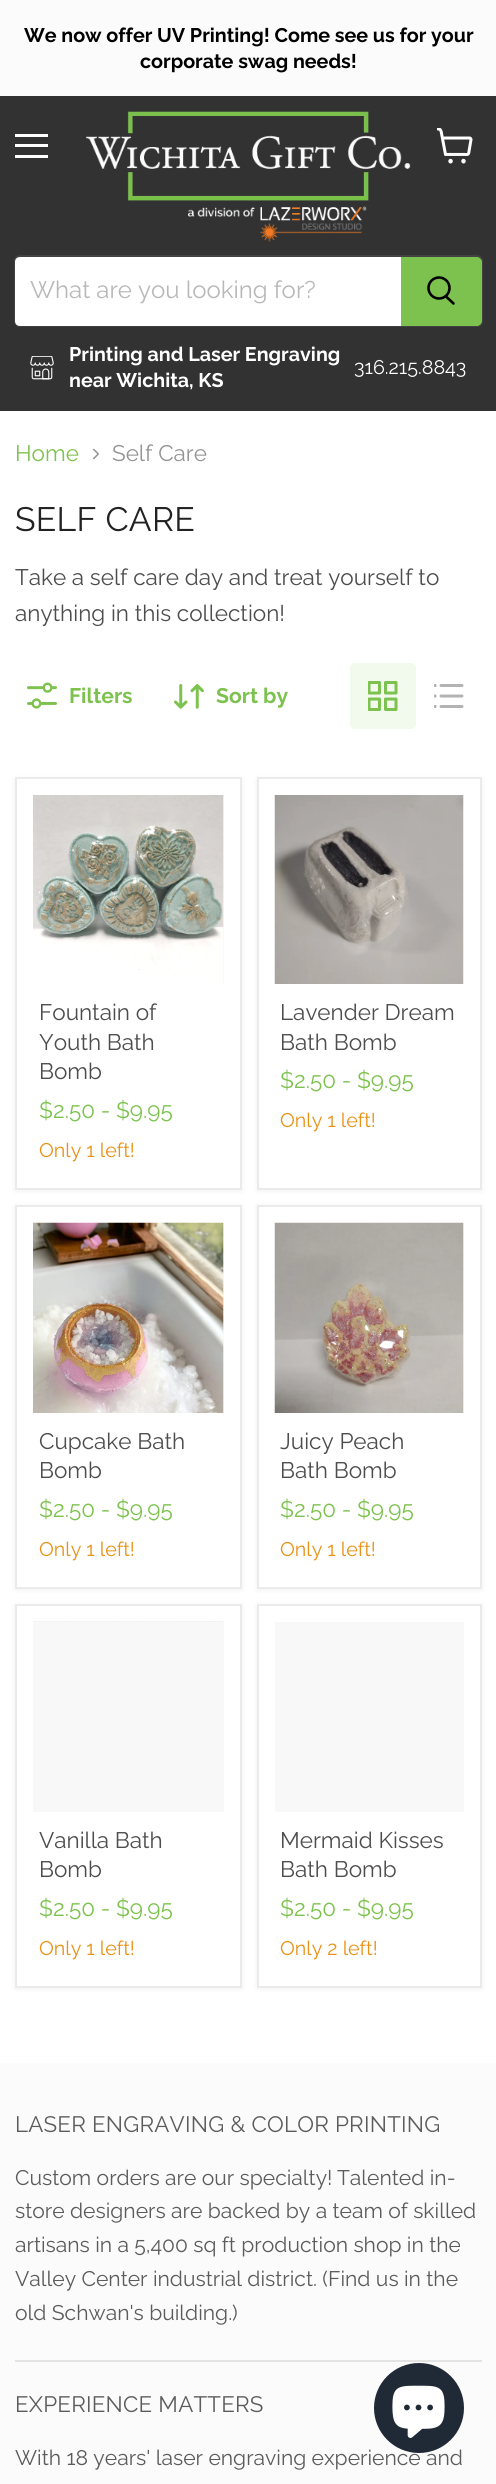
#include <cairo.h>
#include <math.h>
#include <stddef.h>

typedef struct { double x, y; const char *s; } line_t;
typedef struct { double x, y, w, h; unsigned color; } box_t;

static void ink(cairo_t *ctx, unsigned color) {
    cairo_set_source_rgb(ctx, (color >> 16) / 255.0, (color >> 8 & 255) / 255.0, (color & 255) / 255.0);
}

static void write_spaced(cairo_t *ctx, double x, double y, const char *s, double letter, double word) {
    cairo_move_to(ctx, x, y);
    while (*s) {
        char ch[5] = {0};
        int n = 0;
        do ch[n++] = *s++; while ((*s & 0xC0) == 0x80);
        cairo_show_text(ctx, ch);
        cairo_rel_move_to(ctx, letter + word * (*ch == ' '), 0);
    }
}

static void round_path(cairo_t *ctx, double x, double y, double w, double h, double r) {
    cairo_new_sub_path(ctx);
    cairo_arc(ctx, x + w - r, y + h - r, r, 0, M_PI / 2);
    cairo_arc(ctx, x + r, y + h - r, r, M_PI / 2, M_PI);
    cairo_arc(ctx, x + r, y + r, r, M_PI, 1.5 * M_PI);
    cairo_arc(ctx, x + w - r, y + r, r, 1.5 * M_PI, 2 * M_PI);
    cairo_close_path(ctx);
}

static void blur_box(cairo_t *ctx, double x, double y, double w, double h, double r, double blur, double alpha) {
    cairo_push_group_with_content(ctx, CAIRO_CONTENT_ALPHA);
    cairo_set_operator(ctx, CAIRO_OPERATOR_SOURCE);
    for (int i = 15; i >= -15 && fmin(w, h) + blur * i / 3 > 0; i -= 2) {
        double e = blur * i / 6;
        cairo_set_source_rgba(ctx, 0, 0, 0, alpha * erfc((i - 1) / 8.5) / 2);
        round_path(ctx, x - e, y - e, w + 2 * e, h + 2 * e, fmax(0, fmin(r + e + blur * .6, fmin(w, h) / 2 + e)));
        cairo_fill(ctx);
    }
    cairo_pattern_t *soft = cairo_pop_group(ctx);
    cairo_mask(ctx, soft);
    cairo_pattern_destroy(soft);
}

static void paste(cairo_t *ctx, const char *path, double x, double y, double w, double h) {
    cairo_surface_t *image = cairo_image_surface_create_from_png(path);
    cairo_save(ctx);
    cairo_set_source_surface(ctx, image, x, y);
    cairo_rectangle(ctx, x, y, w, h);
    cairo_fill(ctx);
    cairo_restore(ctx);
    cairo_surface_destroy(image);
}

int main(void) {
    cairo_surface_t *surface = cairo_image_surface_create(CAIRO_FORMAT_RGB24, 496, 2484);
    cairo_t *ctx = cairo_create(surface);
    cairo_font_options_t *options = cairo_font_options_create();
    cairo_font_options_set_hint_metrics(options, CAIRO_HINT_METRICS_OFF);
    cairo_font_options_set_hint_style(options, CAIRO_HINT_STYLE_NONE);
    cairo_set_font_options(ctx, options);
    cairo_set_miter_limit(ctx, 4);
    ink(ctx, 0xFFFFFF);
    cairo_paint(ctx);
    ink(ctx, 0xFBFBFB);
    cairo_rectangle(ctx, 0, 0, 496, 96);
    cairo_fill(ctx);
    cairo_select_font_face(ctx, "Raleway", CAIRO_FONT_SLANT_NORMAL, CAIRO_FONT_WEIGHT_BOLD);
    cairo_set_font_size(ctx, 19.7);
    ink(ctx, 0x000000);
    cairo_move_to(ctx, 24, 42);
    cairo_show_text(ctx, "We now offer UV Printing! Come see us for your");
    cairo_move_to(ctx, 140, 68);
    cairo_show_text(ctx, "corporate swag needs!");
    {
        static const box_t items[] = {
            {0, 96, 496, 315, 0x323232},
            {15, 134, 33, 3, 0xFFFFFF},
            {15, 144, 33, 3, 0xFFFFFF},
            {15, 155, 33, 3, 0xFFFFFF},
        };
        for (size_t i = 0; i < sizeof items / sizeof *items; i++) {
            ink(ctx, items[i].color);
            cairo_rectangle(ctx, items[i].x, items[i].y, items[i].w, items[i].h);
            cairo_fill(ctx);
        }
    }
    paste(ctx, "media/1.png", 437, 128, 36, 36);
    paste(ctx, "media/2.png", 86, 111, 325, 131);
    round_path(ctx, 15, 256, 467, 70, 5);
    ink(ctx, 0x424242);
    cairo_stroke(ctx);
    ink(ctx, 0xFFFFFF);
    cairo_new_path(ctx);
    cairo_move_to(ctx, 20, 257);
    cairo_line_to(ctx, 401, 257);
    cairo_line_to(ctx, 401, 326);
    cairo_line_to(ctx, 20, 326);
    cairo_curve_to(ctx, 17, 326, 15, 324, 15, 321);
    cairo_line_to(ctx, 15, 262);
    cairo_curve_to(ctx, 15, 259, 17, 257, 20, 257);
    cairo_close_path(ctx);
    cairo_fill(ctx);
    cairo_select_font_face(ctx, "Raleway", CAIRO_FONT_SLANT_NORMAL, CAIRO_FONT_WEIGHT_NORMAL);
    cairo_set_font_size(ctx, 24);
    ink(ctx, 0xB8B8B8);
    cairo_move_to(ctx, 30, 298);
    cairo_show_text(ctx, "What are you looking for?");
    ink(ctx, 0x7DC24E);
    cairo_new_path(ctx);
    cairo_move_to(ctx, 402, 258);
    cairo_line_to(ctx, 477, 258);
    cairo_curve_to(ctx, 479, 258, 481, 260, 481, 262);
    cairo_line_to(ctx, 481, 321);
    cairo_curve_to(ctx, 481, 323, 479, 325, 477, 325);
    cairo_line_to(ctx, 402, 325);
    cairo_close_path(ctx);
    cairo_fill_preserve(ctx);
    cairo_stroke(ctx);
    cairo_new_path(ctx);
    cairo_move_to(ctx, 453.5, 303.5);
    cairo_line_to(ctx, 446, 296.5);
    ink(ctx, 0x000000);
    cairo_set_line_width(ctx, 2.6);
    cairo_set_line_cap(ctx, CAIRO_LINE_CAP_ROUND);
    cairo_stroke(ctx);
    cairo_arc(ctx, 439, 288, 10.5, 0, 2 * M_PI);
    cairo_set_line_cap(ctx, CAIRO_LINE_CAP_BUTT);
    cairo_stroke(ctx);
    paste(ctx, "media/3.png", 30, 356, 24, 24);
    cairo_select_font_face(ctx, "Raleway", CAIRO_FONT_SLANT_NORMAL, CAIRO_FONT_WEIGHT_BOLD);
    cairo_set_font_size(ctx, 19.7);
    ink(ctx, 0xFFFFFF);
    cairo_move_to(ctx, 69, 361);
    cairo_show_text(ctx, "Printing and Laser Engraving");
    cairo_move_to(ctx, 69, 387);
    cairo_show_text(ctx, "near Wichita, KS");
    cairo_select_font_face(ctx, "Raleway", CAIRO_FONT_SLANT_NORMAL, CAIRO_FONT_WEIGHT_NORMAL);
    cairo_move_to(ctx, 354, 374);
    cairo_show_text(ctx, "316.215.8843");
    cairo_set_font_size(ctx, 22.5);
    ink(ctx, 0x7DC24E);
    cairo_move_to(ctx, 15, 461);
    cairo_show_text(ctx, "Home");
    paste(ctx, "media/4.png", 92, 448, 7, 12);
    ink(ctx, 0x949494);
    cairo_move_to(ctx, 112, 461);
    cairo_show_text(ctx, "Self Care");
    cairo_set_font_size(ctx, 33.75);
    ink(ctx, 0x222222);
    write_spaced(ctx, 15, 531, "SELF CARE", 0.25, 0);
    cairo_set_font_size(ctx, 22.5);
    ink(ctx, 0x4D4D4D);
    cairo_move_to(ctx, 15, 585);
    cairo_show_text(ctx, "Take a self care day and treat yourself to");
    cairo_move_to(ctx, 15, 621);
    cairo_show_text(ctx, "anything in this collection!");
    paste(ctx, "media/5.png", 27, 682, 30, 27);
    cairo_select_font_face(ctx, "Raleway", CAIRO_FONT_SLANT_NORMAL, CAIRO_FONT_WEIGHT_BOLD);
    cairo_set_font_size(ctx, 21.1);
    ink(ctx, 0x7DC24E);
    cairo_move_to(ctx, 69, 703);
    cairo_show_text(ctx, "Filters");
    paste(ctx, "media/6.png", 174, 684, 30, 25);
    cairo_move_to(ctx, 216, 703);
    cairo_show_text(ctx, "Sort by");
    ink(ctx, 0xF2F9ED);
    round_path(ctx, 350, 663, 66, 66, 5);
    cairo_fill(ctx);
    paste(ctx, "media/7.png", 368, 681, 30, 30);
    paste(ctx, "media/8.png", 434, 684, 30, 24);
    ink(ctx, 0x808080);
    blur_box(ctx, 15, 779, 227, 412, 0, 3, 0.11);
    ink(ctx, 0xFFFFFF);
    cairo_rectangle(ctx, 16, 778, 225, 411);
    cairo_fill_preserve(ctx);
    ink(ctx, 0xEBEBEB);
    cairo_set_line_width(ctx, 2);
    cairo_stroke(ctx);
    ink(ctx, 0xF8F8F8);
    cairo_rectangle(ctx, 223, 795, 1, 189);
    cairo_fill(ctx);
    paste(ctx, "media/9.png", 33, 795, 191, 189);
    cairo_select_font_face(ctx, "Raleway", CAIRO_FONT_SLANT_NORMAL, CAIRO_FONT_WEIGHT_NORMAL);
    cairo_set_font_size(ctx, 22.5);
    ink(ctx, 0x4D4D4D);
    {
        static const line_t items[] = {
            {39, 1020, "Fountain of"},
            {39, 1050, "Youth Bath"},
            {39, 1079, "Bomb"},
        };
        for (size_t i = 0; i < sizeof items / sizeof *items; i++) {
            cairo_move_to(ctx, items[i].x, items[i].y);
            cairo_show_text(ctx, items[i].s);
        }
    }
    ink(ctx, 0x7DC24E);
    cairo_move_to(ctx, 39, 1118);
    cairo_show_text(ctx, "$2.50 - $9.95");
    cairo_set_font_size(ctx, 19.7);
    ink(ctx, 0xE99114);
    cairo_move_to(ctx, 39, 1157);
    cairo_show_text(ctx, "Only 1 left!");
    ink(ctx, 0x808080);
    blur_box(ctx, 257, 779, 225, 412, 0, 3, 0.11);
    ink(ctx, 0xFFFFFF);
    cairo_rectangle(ctx, 258, 778, 223, 411);
    cairo_fill_preserve(ctx);
    ink(ctx, 0xEBEBEB);
    cairo_stroke(ctx);
    paste(ctx, "media/10.png", 274, 795, 190, 189);
    cairo_set_font_size(ctx, 22.5);
    ink(ctx, 0x4D4D4D);
    cairo_move_to(ctx, 280, 1020);
    cairo_show_text(ctx, "Lavender Dream");
    cairo_move_to(ctx, 280, 1050);
    cairo_show_text(ctx, "Bath Bomb");
    ink(ctx, 0x7DC24E);
    cairo_move_to(ctx, 280, 1088);
    cairo_show_text(ctx, "$2.50 - $9.95");
    cairo_set_font_size(ctx, 19.7);
    ink(ctx, 0xE99114);
    cairo_move_to(ctx, 280, 1127);
    cairo_show_text(ctx, "Only 1 left!");
    ink(ctx, 0x808080);
    blur_box(ctx, 15, 1206, 227, 384, 0, 3, 0.11);
    ink(ctx, 0xFFFFFF);
    cairo_rectangle(ctx, 16, 1206, 225, 382);
    cairo_fill_preserve(ctx);
    ink(ctx, 0xEBEBEB);
    cairo_stroke(ctx);
    ink(ctx, 0xF8F8F8);
    cairo_rectangle(ctx, 223, 1223, 1, 190);
    cairo_fill(ctx);
    paste(ctx, "media/11.png", 33, 1222, 191, 191);
    cairo_set_font_size(ctx, 22.5);
    ink(ctx, 0x4D4D4D);
    cairo_move_to(ctx, 39, 1449);
    cairo_show_text(ctx, "Cupcake Bath");
    cairo_move_to(ctx, 39, 1478);
    cairo_show_text(ctx, "Bomb");
    ink(ctx, 0x7DC24E);
    cairo_move_to(ctx, 39, 1517);
    cairo_show_text(ctx, "$2.50 - $9.95");
    cairo_set_font_size(ctx, 19.7);
    ink(ctx, 0xE99114);
    cairo_move_to(ctx, 39, 1556);
    cairo_show_text(ctx, "Only 1 left!");
    ink(ctx, 0x808080);
    blur_box(ctx, 257, 1206, 225, 384, 0, 3, 0.11);
    ink(ctx, 0xFFFFFF);
    cairo_rectangle(ctx, 258, 1206, 223, 382);
    cairo_fill_preserve(ctx);
    ink(ctx, 0xEBEBEB);
    cairo_stroke(ctx);
    ink(ctx, 0xF8F8F8);
    cairo_rectangle(ctx, 463, 1223, 1, 190);
    cairo_fill(ctx);
    paste(ctx, "media/12.png", 274, 1222, 190, 191);
    cairo_set_font_size(ctx, 22.5);
    ink(ctx, 0x4D4D4D);
    cairo_move_to(ctx, 280, 1449);
    cairo_show_text(ctx, "Juicy Peach");
    cairo_move_to(ctx, 280, 1478);
    cairo_show_text(ctx, "Bath Bomb");
    ink(ctx, 0x7DC24E);
    cairo_move_to(ctx, 280, 1517);
    cairo_show_text(ctx, "$2.50 - $9.95");
    cairo_set_font_size(ctx, 19.7);
    ink(ctx, 0xE99114);
    cairo_move_to(ctx, 280, 1556);
    cairo_show_text(ctx, "Only 1 left!");
    ink(ctx, 0x808080);
    blur_box(ctx, 15, 1605, 227, 384, 0, 3, 0.11);
    ink(ctx, 0xFFFFFF);
    cairo_rectangle(ctx, 16, 1605, 225, 382);
    cairo_fill_preserve(ctx);
    ink(ctx, 0xEBEBEB);
    cairo_stroke(ctx);
    paste(ctx, "media/13.png", 33, 1621, 191, 1);
    ink(ctx, 0xF8F8F8);
    cairo_rectangle(ctx, 33, 1622, 191, 190);
    cairo_fill(ctx);
    cairo_set_font_size(ctx, 22.5);
    ink(ctx, 0x4D4D4D);
    cairo_move_to(ctx, 39, 1848);
    cairo_show_text(ctx, "Vanilla Bath");
    cairo_move_to(ctx, 39, 1877);
    cairo_show_text(ctx, "Bomb");
    ink(ctx, 0x7DC24E);
    cairo_move_to(ctx, 39, 1916);
    cairo_show_text(ctx, "$2.50 - $9.95");
    cairo_set_font_size(ctx, 19.7);
    ink(ctx, 0xE99114);
    cairo_move_to(ctx, 39, 1955);
    cairo_show_text(ctx, "Only 1 left!");
    ink(ctx, 0x808080);
    blur_box(ctx, 257, 1605, 225, 384, 0, 3, 0.11);
    ink(ctx, 0xFFFFFF);
    cairo_rectangle(ctx, 258, 1605, 223, 382);
    cairo_fill_preserve(ctx);
    ink(ctx, 0xEBEBEB);
    cairo_stroke(ctx);
    ink(ctx, 0xF8F8F8);
    cairo_rectangle(ctx, 275, 1622, 189, 190);
    cairo_fill(ctx);
    cairo_set_font_size(ctx, 22.5);
    ink(ctx, 0x4D4D4D);
    cairo_move_to(ctx, 280, 1848);
    cairo_show_text(ctx, "Mermaid Kisses");
    cairo_move_to(ctx, 280, 1877);
    cairo_show_text(ctx, "Bath Bomb");
    ink(ctx, 0x7DC24E);
    cairo_move_to(ctx, 280, 1916);
    cairo_show_text(ctx, "$2.50 - $9.95");
    cairo_set_font_size(ctx, 19.7);
    ink(ctx, 0xE99114);
    cairo_move_to(ctx, 280, 1955);
    cairo_show_text(ctx, "Only 2 left!");
    ink(ctx, 0xFBFBFB);
    cairo_rectangle(ctx, 0, 2063, 496, 421);
    cairo_fill(ctx);
    ink(ctx, 0xE3E3E3);
    cairo_rectangle(ctx, 15, 2360, 467, 2);
    cairo_fill(ctx);
    cairo_set_font_size(ctx, 22.3);
    ink(ctx, 0x5C5C5C);
    write_spaced(ctx, 15, 2132, "LASER ENGRAVING & COLOR PRINTING", 0.25, 0);
    cairo_set_font_size(ctx, 21.1);
    {
        static const line_t items[] = {
            {15, 2185, "Custom orders are our specialty!"},
            {337, 2185, "Talented in-"},
            {15, 2218, "store designers are backed by a team of skilled"},
            {15, 2252, "artisans in a 5,400 sq ft production shop in the"},
            {15, 2286, "Valley Center industrial district. (Find us in the"},
            {15, 2320, "old Schwan's building.)"},
        };
        for (size_t i = 0; i < sizeof items / sizeof *items; i++) {
            cairo_move_to(ctx, items[i].x, items[i].y);
            cairo_show_text(ctx, items[i].s);
        }
    }
    cairo_set_font_size(ctx, 22.3);
    write_spaced(ctx, 15, 2412, "EXPERIENCE MATTERS", 0.25, 0);
    cairo_set_font_size(ctx, 21.1);
    cairo_move_to(ctx, 15, 2465);
    cairo_show_text(ctx, "With 18 years' laser engraving experience and");
    ink(ctx, 0x202A36);
    cairo_new_path(ctx);
    cairo_arc(ctx, 419, 2408, 45, 0, 2 * M_PI);
    cairo_fill(ctx);
    paste(ctx, "media/14.png", 392, 2385, 53, 53);
    cairo_surface_write_to_png(surface, "image.png");
    cairo_font_options_destroy(options);
    cairo_destroy(ctx);
    cairo_surface_destroy(surface);
    return 0;
}
